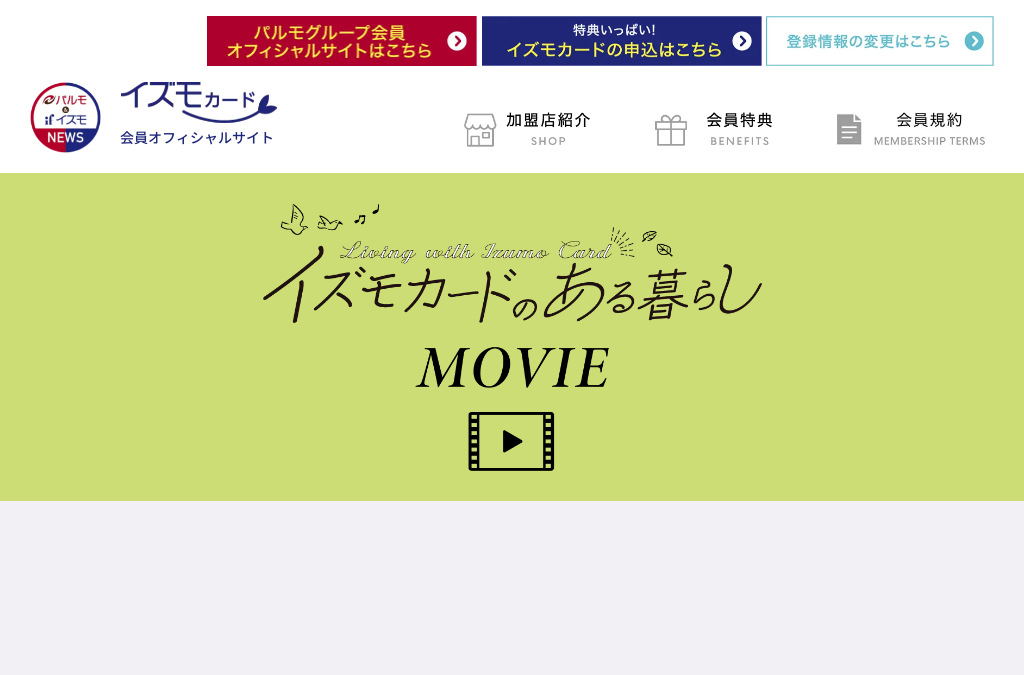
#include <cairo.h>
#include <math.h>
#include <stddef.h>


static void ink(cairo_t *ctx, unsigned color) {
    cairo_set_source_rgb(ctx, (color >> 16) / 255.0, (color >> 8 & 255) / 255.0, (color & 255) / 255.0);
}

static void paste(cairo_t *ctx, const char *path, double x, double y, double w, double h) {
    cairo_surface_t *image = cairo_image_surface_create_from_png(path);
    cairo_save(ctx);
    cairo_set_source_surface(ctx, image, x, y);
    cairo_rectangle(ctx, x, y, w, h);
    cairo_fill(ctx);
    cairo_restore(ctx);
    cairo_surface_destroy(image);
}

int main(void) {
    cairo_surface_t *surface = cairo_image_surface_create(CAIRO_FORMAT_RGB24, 1024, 675);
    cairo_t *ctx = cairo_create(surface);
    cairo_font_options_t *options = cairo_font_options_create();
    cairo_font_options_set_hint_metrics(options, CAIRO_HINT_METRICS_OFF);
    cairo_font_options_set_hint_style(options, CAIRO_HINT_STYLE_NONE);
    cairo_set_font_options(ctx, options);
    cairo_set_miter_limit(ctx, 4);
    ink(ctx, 0xFFFFFF);
    cairo_paint(ctx);
    paste(ctx, "media/1.png", 207, 16, 270, 50);
    paste(ctx, "media/2.png", 482, 16, 280, 50);
    paste(ctx, "media/3.png", 766, 16, 228, 50);
    paste(ctx, "media/4.png", 30, 82, 71, 71);
    paste(ctx, "media/5.png", 121, 82, 157, 41);
    cairo_select_font_face(ctx, "Noto Sans JP Thin", CAIRO_FONT_SLANT_NORMAL, CAIRO_FONT_WEIGHT_NORMAL);
    cairo_set_font_size(ctx, 14);
    ink(ctx, 0x1E2678);
    cairo_move_to(ctx, 120, 143);
    cairo_show_text(ctx, "会員オフィシャルサイト");
    paste(ctx, "media/6.png", 464, 112, 126, 35);
    paste(ctx, "media/7.png", 655, 112, 117, 34);
    paste(ctx, "media/8.png", 836, 112, 150, 34);
    ink(ctx, 0xF2F0F4);
    cairo_rectangle(ctx, 0, 501, 1024, 174);
    cairo_fill(ctx);
    ink(ctx, 0xCBDD74);
    cairo_rectangle(ctx, 0, 173, 1024, 328);
    cairo_fill(ctx);
    paste(ctx, "media/9.png", 263, 204, 499, 267);
    cairo_surface_write_to_png(surface, "image.png");
    cairo_font_options_destroy(options);
    cairo_destroy(ctx);
    cairo_surface_destroy(surface);
    return 0;
}
